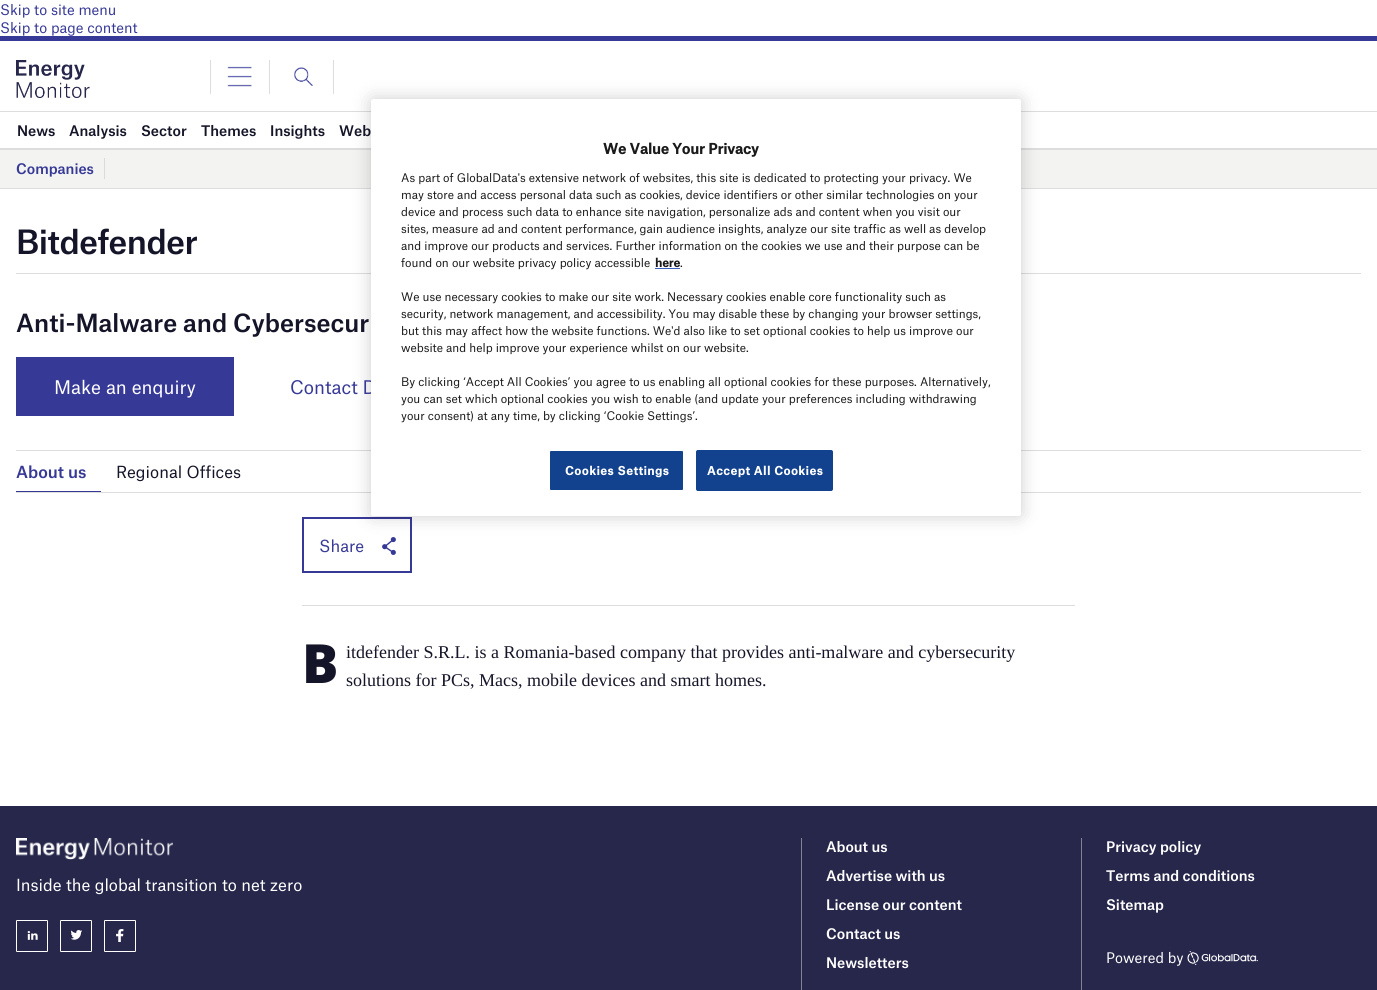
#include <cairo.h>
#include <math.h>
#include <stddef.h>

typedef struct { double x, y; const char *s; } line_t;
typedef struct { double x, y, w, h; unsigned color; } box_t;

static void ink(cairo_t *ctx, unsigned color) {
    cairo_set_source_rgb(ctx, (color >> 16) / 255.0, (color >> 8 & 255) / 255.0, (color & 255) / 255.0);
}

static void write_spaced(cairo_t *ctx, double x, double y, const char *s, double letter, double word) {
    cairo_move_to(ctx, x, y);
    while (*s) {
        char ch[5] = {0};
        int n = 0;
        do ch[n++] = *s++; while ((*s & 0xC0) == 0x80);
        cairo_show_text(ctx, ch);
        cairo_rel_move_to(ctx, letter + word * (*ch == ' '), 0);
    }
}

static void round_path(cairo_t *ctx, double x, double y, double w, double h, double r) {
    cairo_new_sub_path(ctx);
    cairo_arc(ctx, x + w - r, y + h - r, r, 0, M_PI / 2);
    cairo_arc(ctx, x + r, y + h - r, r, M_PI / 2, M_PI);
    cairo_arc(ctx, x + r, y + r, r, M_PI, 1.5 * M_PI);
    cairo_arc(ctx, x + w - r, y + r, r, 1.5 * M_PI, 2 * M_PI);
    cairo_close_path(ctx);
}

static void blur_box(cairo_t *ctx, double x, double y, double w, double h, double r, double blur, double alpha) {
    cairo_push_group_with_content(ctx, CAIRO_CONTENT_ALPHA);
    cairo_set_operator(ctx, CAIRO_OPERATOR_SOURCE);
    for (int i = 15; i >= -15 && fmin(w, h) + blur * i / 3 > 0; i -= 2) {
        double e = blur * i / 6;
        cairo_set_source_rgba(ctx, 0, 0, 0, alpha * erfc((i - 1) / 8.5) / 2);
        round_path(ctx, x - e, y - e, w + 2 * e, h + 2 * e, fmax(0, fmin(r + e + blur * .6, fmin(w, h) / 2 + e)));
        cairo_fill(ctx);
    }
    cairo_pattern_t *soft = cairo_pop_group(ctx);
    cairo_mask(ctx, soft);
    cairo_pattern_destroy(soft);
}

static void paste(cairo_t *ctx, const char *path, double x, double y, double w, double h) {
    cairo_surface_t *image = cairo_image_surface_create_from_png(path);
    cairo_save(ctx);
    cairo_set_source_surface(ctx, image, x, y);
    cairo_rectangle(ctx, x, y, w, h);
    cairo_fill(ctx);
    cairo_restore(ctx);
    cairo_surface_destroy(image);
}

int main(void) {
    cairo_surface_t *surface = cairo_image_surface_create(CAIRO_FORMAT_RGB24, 1377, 990);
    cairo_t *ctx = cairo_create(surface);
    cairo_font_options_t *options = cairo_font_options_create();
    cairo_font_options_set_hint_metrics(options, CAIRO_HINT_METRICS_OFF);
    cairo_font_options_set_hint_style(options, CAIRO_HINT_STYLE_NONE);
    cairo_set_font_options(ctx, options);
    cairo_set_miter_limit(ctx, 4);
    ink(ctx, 0xFFFFFF);
    cairo_paint(ctx);
    cairo_select_font_face(ctx, "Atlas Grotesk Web", CAIRO_FONT_SLANT_NORMAL, CAIRO_FONT_WEIGHT_NORMAL);
    cairo_set_font_size(ctx, 14);
    ink(ctx, 0x373997);
    cairo_move_to(ctx, 0, 15);
    cairo_show_text(ctx, "Skip to site menu");
    cairo_move_to(ctx, 0, 33);
    cairo_show_text(ctx, "Skip to page content");
    cairo_rectangle(ctx, 0, 36, 1377, 5);
    cairo_fill(ctx);
    paste(ctx, "media/1.png", 16, 60, 74, 38);
    paste(ctx, "media/2.png", 227, 66, 25, 21);
    ink(ctx, 0xDDDDDD);
    cairo_rectangle(ctx, 269, 60, 1, 34);
    cairo_fill(ctx);
    cairo_rectangle(ctx, 210, 60, 1, 34);
    cairo_fill(ctx);
    paste(ctx, "media/3.png", 294, 67, 19, 19);
    {
        static const box_t items[] = {
            {333, 60, 1, 34, 0xDDDDDD},
            {0, 111, 1377, 1, 0xDDDDDD},
            {0, 148, 1377, 2, 0xDDDDDD},
        };
        for (size_t i = 0; i < sizeof items / sizeof *items; i++) {
            ink(ctx, items[i].color);
            cairo_rectangle(ctx, items[i].x, items[i].y, items[i].w, items[i].h);
            cairo_fill(ctx);
        }
    }
    cairo_select_font_face(ctx, "Atlas Grotesk Web Medium", CAIRO_FONT_SLANT_NORMAL, CAIRO_FONT_WEIGHT_NORMAL);
    ink(ctx, 0x151529);
    {
        static const line_t items[] = {
            {17, 136, "News"},
            {69, 136, "Analysis"},
            {141, 136, "Sector"},
            {201, 136, "Themes"},
            {270, 136, "Insights"},
            {339, 136, "Web"},
        };
        for (size_t i = 0; i < sizeof items / sizeof *items; i++) {
            cairo_move_to(ctx, items[i].x, items[i].y);
            cairo_show_text(ctx, items[i].s);
        }
    }
    ink(ctx, 0xF3F3F1);
    cairo_rectangle(ctx, 0, 150, 1377, 38);
    cairo_fill(ctx);
    ink(ctx, 0xDDDDDD);
    cairo_rectangle(ctx, 0, 188, 1377, 1);
    cairo_fill(ctx);
    ink(ctx, 0x373997);
    cairo_move_to(ctx, 16, 174);
    cairo_show_text(ctx, "Companies");
    {
        static const box_t items[] = {
            {104, 158, 1, 21, 0xDBDBDB},
            {16, 273, 1345, 1, 0xDDDDDD},
            {16, 450, 1345, 1, 0xDDDDDD},
            {16, 492, 1345, 1, 0xDDDDDD},
        };
        for (size_t i = 0; i < sizeof items / sizeof *items; i++) {
            ink(ctx, items[i].color);
            cairo_rectangle(ctx, items[i].x, items[i].y, items[i].w, items[i].h);
            cairo_fill(ctx);
        }
    }
    cairo_rectangle(ctx, 303, 518, 108, 54);
    ink(ctx, 0x373997);
    cairo_stroke(ctx);
    paste(ctx, "media/4.png", 382, 537, 14, 18);
    ink(ctx, 0x000000);
    blur_box(ctx, 371, 99, 650, 417, 2.5, 9, 0.2);
    cairo_select_font_face(ctx, "Atlas Grotesk Web", CAIRO_FONT_SLANT_NORMAL, CAIRO_FONT_WEIGHT_NORMAL);
    cairo_set_font_size(ctx, 18);
    ink(ctx, 0x373997);
    cairo_move_to(ctx, 290, 394);
    cairo_show_text(ctx, "Contact D");
    ink(ctx, 0xFFFFFF);
    round_path(ctx, 371, 99, 650, 417, 2.5);
    cairo_fill(ctx);
    cairo_select_font_face(ctx, "Atlas Grotesk Web", CAIRO_FONT_SLANT_NORMAL, CAIRO_FONT_WEIGHT_BOLD);
    cairo_set_font_size(ctx, 14);
    ink(ctx, 0x1A1A1A);
    cairo_move_to(ctx, 603, 154);
    cairo_show_text(ctx, "We Value Your Privacy");
    cairo_select_font_face(ctx, "Atlas Grotesk Web", CAIRO_FONT_SLANT_NORMAL, CAIRO_FONT_WEIGHT_NORMAL);
    cairo_set_font_size(ctx, 11.38);
    {
        static const line_t items[] = {
            {401, 182, "As part of GlobalData's extensive network of websites, this site is dedicated to protecting your privacy. We"},
            {401, 199, "may store and access personal data such as cookies, device identifiers or other similar technologies on your"},
            {401, 216, "device and process such data to enhance site navigation, personalize ads and content when you visit our"},
            {401, 233, "sites, measure ad and content performance, gain audience insights, analyze our site traffic as well as develop"},
            {401, 250, "and improve our products and services. Further information on the cookies we use and their purpose can be"},
            {401, 267, "found on our website privacy policy accessible"},
        };
        for (size_t i = 0; i < sizeof items / sizeof *items; i++) {
            cairo_move_to(ctx, items[i].x, items[i].y);
            cairo_show_text(ctx, items[i].s);
        }
    }
    cairo_select_font_face(ctx, "Atlas Grotesk Web", CAIRO_FONT_SLANT_NORMAL, CAIRO_FONT_WEIGHT_BOLD);
    cairo_move_to(ctx, 655, 267);
    cairo_show_text(ctx, "here");
    ink(ctx, 0x3860BE);
    cairo_rectangle(ctx, 655, 268, 25, 1);
    cairo_fill(ctx);
    cairo_select_font_face(ctx, "Atlas Grotesk Web", CAIRO_FONT_SLANT_NORMAL, CAIRO_FONT_WEIGHT_NORMAL);
    ink(ctx, 0x1A1A1A);
    {
        static const line_t items[] = {
            {680, 267, "."},
            {401, 301, "We use necessary cookies to make our site work. Necessary cookies enable core functionality such as"},
            {401, 318, "security, network management, and accessibility. You may disable these by changing your browser settings,"},
            {401, 335, "but this may affect how the website functions. We'd also like to set optional cookies to help us improve our"},
            {401, 352, "website and help improve your experience whilst on our website."},
            {401, 386, "By clicking ‘Accept All Cookies’ you agree to us enabling all optional cookies for these purposes. Alternatively,"},
            {401, 403, "you can set which optional cookies you wish to enable (and update your preferences including withdrawing"},
            {401, 420, "your consent) at any time, by clicking ‘Cookie Settings’."},
        };
        for (size_t i = 0; i < sizeof items / sizeof *items; i++) {
            cairo_move_to(ctx, items[i].x, items[i].y);
            cairo_show_text(ctx, items[i].s);
        }
    }
    ink(ctx, 0x12418D);
    round_path(ctx, 549.5, 450.5, 134, 40, 1.5);
    cairo_fill_preserve(ctx);
    ink(ctx, 0xFFFFFF);
    cairo_set_line_width(ctx, 1);
    cairo_stroke(ctx);
    cairo_select_font_face(ctx, "Atlas Grotesk Web", CAIRO_FONT_SLANT_NORMAL, CAIRO_FONT_WEIGHT_BOLD);
    write_spaced(ctx, 565, 475, "Cookies Settings", 0.6, 0);
    ink(ctx, 0x12418D);
    round_path(ctx, 696.5, 450.5, 136, 40, 1.5);
    cairo_fill_preserve(ctx);
    cairo_stroke(ctx);
    ink(ctx, 0xFFFFFF);
    write_spaced(ctx, 707, 475, "Accept All Cookies", 0.6, 0);
    cairo_select_font_face(ctx, "Atlas Grotesk Web Medium", CAIRO_FONT_SLANT_NORMAL, CAIRO_FONT_WEIGHT_NORMAL);
    cairo_set_font_size(ctx, 32);
    ink(ctx, 0x151529);
    write_spaced(ctx, 16, 254, "Bitdefender", -0.5, 0);
    cairo_set_font_size(ctx, 24);
    cairo_move_to(ctx, 16, 332);
    cairo_show_text(ctx, "Anti-Malware and Cybersecur");
    ink(ctx, 0x373997);
    cairo_rectangle(ctx, 16, 357, 218, 59);
    cairo_fill(ctx);
    cairo_select_font_face(ctx, "Atlas Grotesk Web", CAIRO_FONT_SLANT_NORMAL, CAIRO_FONT_WEIGHT_NORMAL);
    cairo_set_font_size(ctx, 18);
    ink(ctx, 0xFFFFFF);
    cairo_move_to(ctx, 54, 394);
    cairo_show_text(ctx, "Make an enquiry");
    ink(ctx, 0x373997);
    cairo_rectangle(ctx, 16, 491, 85, 1);
    cairo_fill(ctx);
    cairo_select_font_face(ctx, "Atlas Grotesk Web Medium", CAIRO_FONT_SLANT_NORMAL, CAIRO_FONT_WEIGHT_NORMAL);
    cairo_set_font_size(ctx, 16);
    cairo_move_to(ctx, 16, 478);
    cairo_show_text(ctx, "About us");
    cairo_select_font_face(ctx, "Atlas Grotesk Web", CAIRO_FONT_SLANT_NORMAL, CAIRO_FONT_WEIGHT_NORMAL);
    ink(ctx, 0x151529);
    cairo_move_to(ctx, 116, 478);
    cairo_show_text(ctx, "Regional Offices");
    ink(ctx, 0xDDDDDD);
    cairo_rectangle(ctx, 302, 605, 773, 1);
    cairo_fill(ctx);
    ink(ctx, 0x373997);
    cairo_move_to(ctx, 319, 552);
    cairo_show_text(ctx, "Share");
    cairo_select_font_face(ctx, "Noto Sans Black", CAIRO_FONT_SLANT_NORMAL, CAIRO_FONT_WEIGHT_NORMAL);
    cairo_set_font_size(ctx, 54);
    ink(ctx, 0x151529);
    cairo_move_to(ctx, 302, 683);
    cairo_show_text(ctx, "B");
    cairo_select_font_face(ctx, "Liberation Serif", CAIRO_FONT_SLANT_NORMAL, CAIRO_FONT_WEIGHT_NORMAL);
    cairo_set_font_size(ctx, 18);
    cairo_move_to(ctx, 346, 658);
    cairo_show_text(ctx, "itdefender S.R.L. is a Romania-based company that provides anti-malware and cybersecurity");
    cairo_move_to(ctx, 346, 686);
    cairo_show_text(ctx, "solutions for PCs, Macs, mobile devices and smart homes.");
    ink(ctx, 0x27274C);
    cairo_rectangle(ctx, 0, 806, 1377, 184);
    cairo_fill(ctx);
    paste(ctx, "media/5.png", 16, 838, 157, 22);
    cairo_select_font_face(ctx, "Atlas Grotesk Web", CAIRO_FONT_SLANT_NORMAL, CAIRO_FONT_WEIGHT_NORMAL);
    cairo_set_font_size(ctx, 16);
    ink(ctx, 0xFFFFFF);
    cairo_move_to(ctx, 16, 891);
    cairo_show_text(ctx, "Inside the global transition to net zero");
    round_path(ctx, 16.5, 920.5, 31, 31, 0.5);
    cairo_stroke(ctx);
    paste(ctx, "media/6.png", 27, 931, 11, 9);
    round_path(ctx, 60.5, 920.5, 31, 31, 0.5);
    cairo_stroke(ctx);
    paste(ctx, "media/7.png", 70, 930, 12, 10);
    round_path(ctx, 104.5, 920.5, 31, 31, 0.5);
    cairo_stroke(ctx);
    paste(ctx, "media/8.png", 116, 929, 8, 13);
    ink(ctx, 0x828295);
    cairo_rectangle(ctx, 801, 838, 1, 152);
    cairo_fill(ctx);
    cairo_select_font_face(ctx, "Atlas Grotesk Web Medium", CAIRO_FONT_SLANT_NORMAL, CAIRO_FONT_WEIGHT_NORMAL);
    cairo_set_font_size(ctx, 14);
    ink(ctx, 0xFFFFFF);
    {
        static const line_t items[] = {
            {826, 852, "About us"},
            {826, 881, "Advertise with us"},
            {826, 910, "License our content"},
            {826, 939, "Contact us"},
            {826, 968, "Newsletters"},
        };
        for (size_t i = 0; i < sizeof items / sizeof *items; i++) {
            cairo_move_to(ctx, items[i].x, items[i].y);
            cairo_show_text(ctx, items[i].s);
        }
    }
    ink(ctx, 0x828295);
    cairo_rectangle(ctx, 1081, 838, 1, 152);
    cairo_fill(ctx);
    ink(ctx, 0xFFFFFF);
    {
        static const line_t items[] = {
            {1106, 852, "Privacy policy"},
            {1106, 881, "Terms and conditions"},
            {1106, 910, "Sitemap"},
        };
        for (size_t i = 0; i < sizeof items / sizeof *items; i++) {
            cairo_move_to(ctx, items[i].x, items[i].y);
            cairo_show_text(ctx, items[i].s);
        }
    }
    cairo_select_font_face(ctx, "Atlas Grotesk Web", CAIRO_FONT_SLANT_NORMAL, CAIRO_FONT_WEIGHT_NORMAL);
    cairo_move_to(ctx, 1106, 963);
    cairo_show_text(ctx, "Powered by");
    paste(ctx, "media/9.png", 1187, 951, 71, 14);
    cairo_surface_write_to_png(surface, "image.png");
    cairo_font_options_destroy(options);
    cairo_destroy(ctx);
    cairo_surface_destroy(surface);
    return 0;
}
